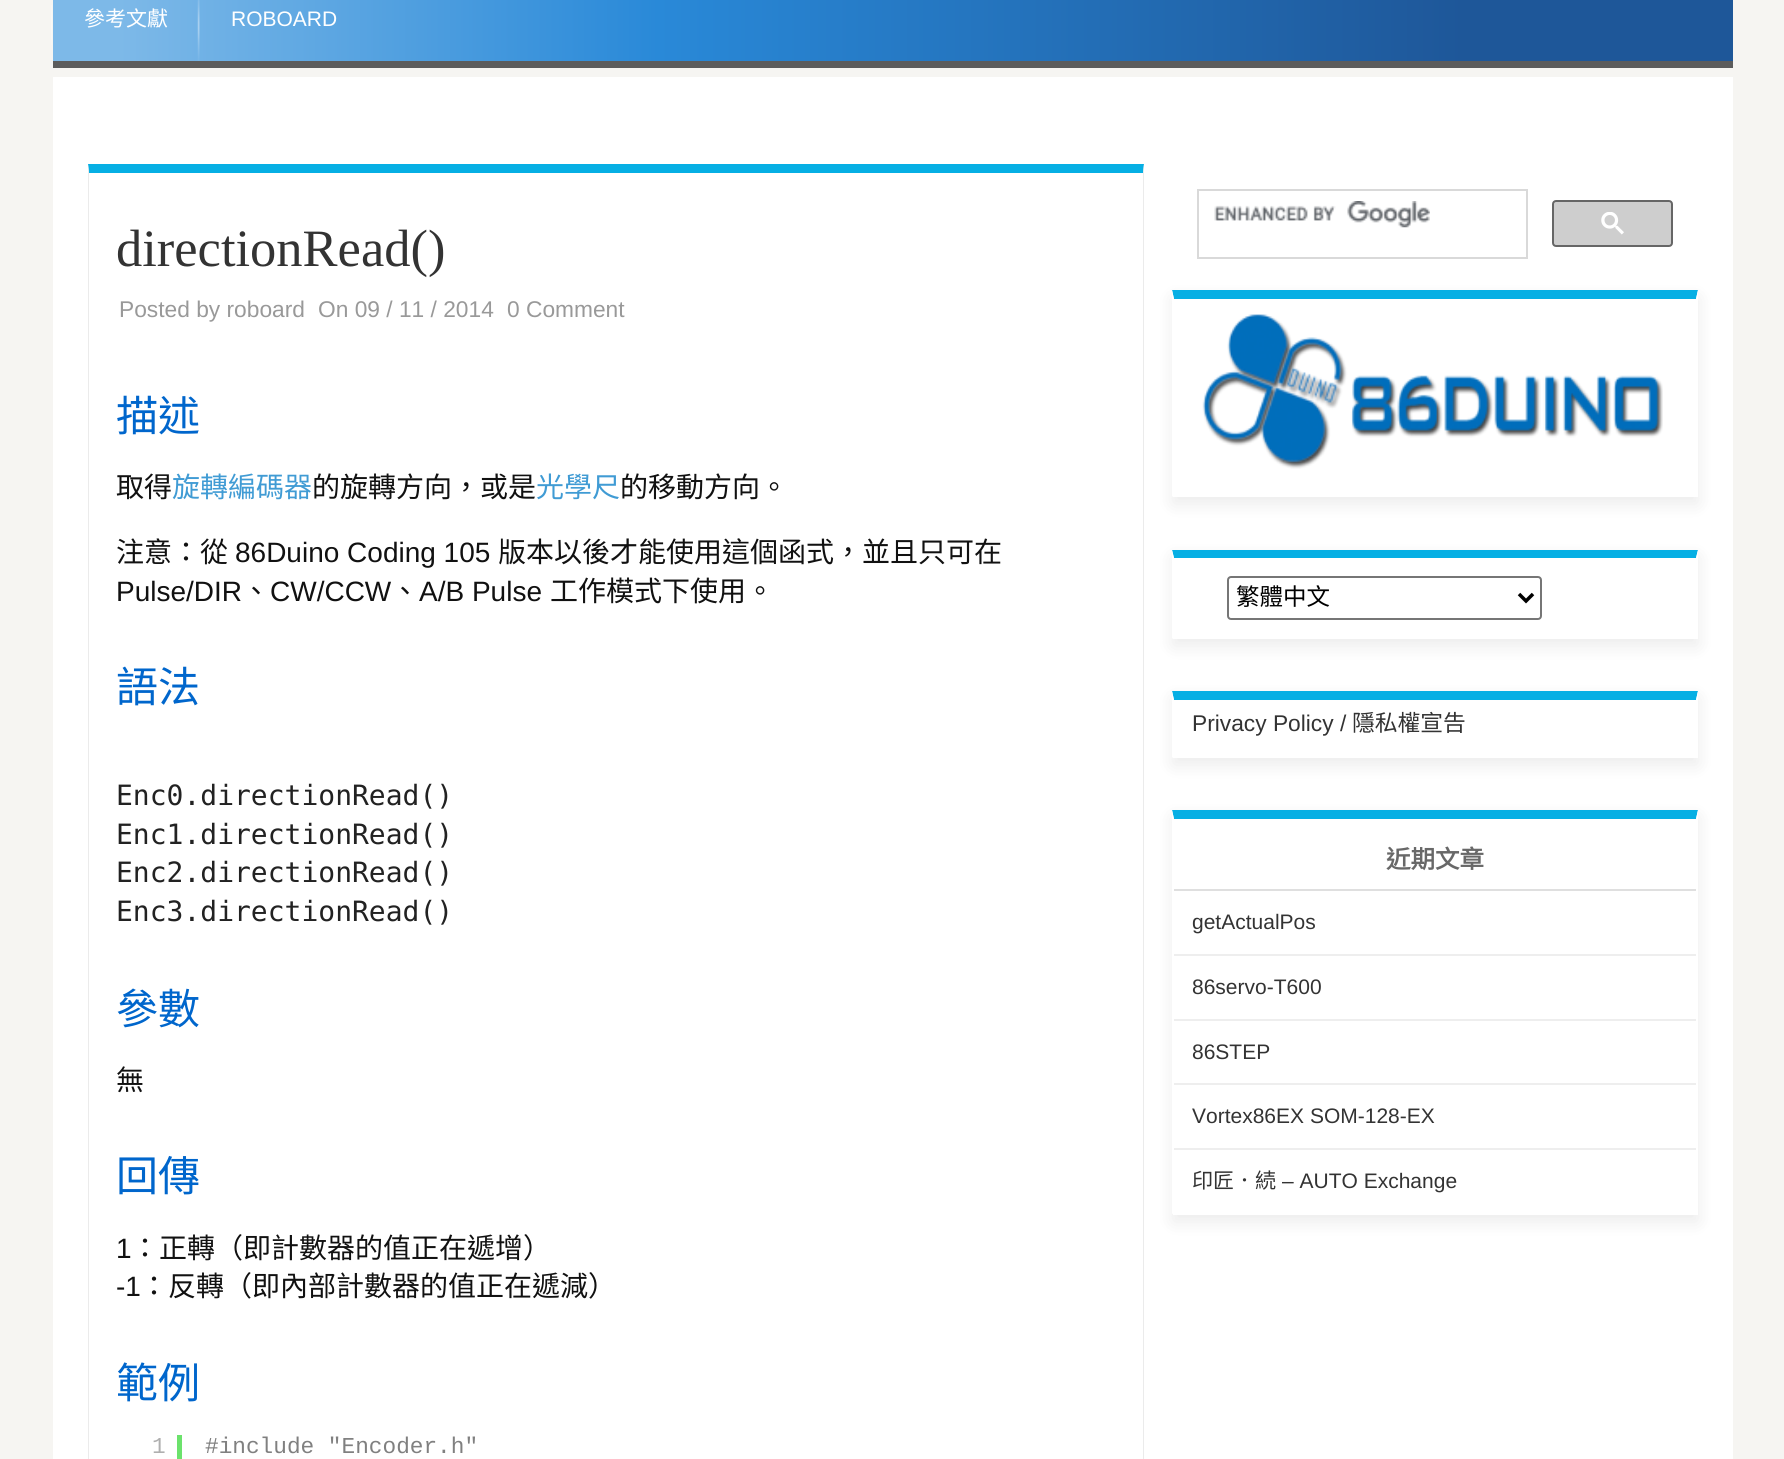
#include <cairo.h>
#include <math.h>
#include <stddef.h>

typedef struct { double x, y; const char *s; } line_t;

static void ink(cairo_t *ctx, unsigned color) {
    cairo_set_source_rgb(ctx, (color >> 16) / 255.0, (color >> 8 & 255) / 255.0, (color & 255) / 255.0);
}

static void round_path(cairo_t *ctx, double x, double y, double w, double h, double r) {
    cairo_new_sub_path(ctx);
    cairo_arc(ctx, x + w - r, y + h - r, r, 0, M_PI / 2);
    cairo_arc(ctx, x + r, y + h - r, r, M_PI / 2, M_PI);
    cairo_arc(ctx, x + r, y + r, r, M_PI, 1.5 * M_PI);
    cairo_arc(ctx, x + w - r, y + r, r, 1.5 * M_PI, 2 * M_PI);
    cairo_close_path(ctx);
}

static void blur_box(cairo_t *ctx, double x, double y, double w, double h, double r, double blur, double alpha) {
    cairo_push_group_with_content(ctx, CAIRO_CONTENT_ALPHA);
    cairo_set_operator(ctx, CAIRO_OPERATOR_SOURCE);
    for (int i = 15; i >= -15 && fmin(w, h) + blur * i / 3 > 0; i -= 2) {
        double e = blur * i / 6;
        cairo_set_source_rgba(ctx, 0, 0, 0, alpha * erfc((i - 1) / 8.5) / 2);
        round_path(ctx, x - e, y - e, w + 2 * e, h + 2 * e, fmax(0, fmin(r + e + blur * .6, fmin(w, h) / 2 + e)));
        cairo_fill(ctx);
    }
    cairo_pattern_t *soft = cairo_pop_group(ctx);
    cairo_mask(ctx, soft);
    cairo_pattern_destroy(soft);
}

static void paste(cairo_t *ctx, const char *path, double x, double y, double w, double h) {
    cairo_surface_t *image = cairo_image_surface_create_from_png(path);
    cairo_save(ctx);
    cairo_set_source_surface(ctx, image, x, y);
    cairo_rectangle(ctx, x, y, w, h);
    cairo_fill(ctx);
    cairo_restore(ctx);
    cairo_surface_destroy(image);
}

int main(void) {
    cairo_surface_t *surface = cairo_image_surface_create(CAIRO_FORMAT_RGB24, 1784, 1459);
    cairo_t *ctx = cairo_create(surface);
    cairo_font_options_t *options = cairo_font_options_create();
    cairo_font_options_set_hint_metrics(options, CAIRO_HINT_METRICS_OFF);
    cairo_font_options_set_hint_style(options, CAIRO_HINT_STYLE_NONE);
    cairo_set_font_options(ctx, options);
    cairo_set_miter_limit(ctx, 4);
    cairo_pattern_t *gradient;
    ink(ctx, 0xF6F5F2);
    cairo_paint(ctx);
    gradient = cairo_pattern_create_linear(53, -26, 1733, -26);
    cairo_pattern_add_color_stop_rgba(gradient, 0.04, 0.49, 0.725, 0.91, 1);
    cairo_pattern_add_color_stop_rgba(gradient, 0.36, 0.161, 0.537, 0.847, 1);
    cairo_pattern_add_color_stop_rgba(gradient, 0.84, 0.118, 0.341, 0.6, 1);
    cairo_set_source(ctx, gradient);
    cairo_pattern_destroy(gradient);
    cairo_rectangle(ctx, 53, 0, 1680, 61);
    cairo_fill(ctx);
    ink(ctx, 0x5C5C5C);
    cairo_rectangle(ctx, 53, 61, 1680, 7);
    cairo_fill(ctx);
    paste(ctx, "media/1.png", 51, 5, 1, 40);
    cairo_select_font_face(ctx, "Noto Sans CJK TC", CAIRO_FONT_SLANT_NORMAL, CAIRO_FONT_WEIGHT_NORMAL);
    cairo_set_font_size(ctx, 21);
    ink(ctx, 0xFFFFFF);
    cairo_move_to(ctx, 84, 26);
    cairo_show_text(ctx, "參考文獻");
    paste(ctx, "media/2.png", 197, 0, 3, 61);
    cairo_select_font_face(ctx, "Liberation Sans", CAIRO_FONT_SLANT_NORMAL, CAIRO_FONT_WEIGHT_NORMAL);
    cairo_move_to(ctx, 231, 26);
    cairo_show_text(ctx, "ROBOARD");
    cairo_rectangle(ctx, 53, 77, 1680, 1382);
    cairo_fill(ctx);
    ink(ctx, 0x06AFE4);
    cairo_new_path(ctx);
    cairo_move_to(ctx, 88, 164);
    cairo_line_to(ctx, 1144, 164);
    cairo_line_to(ctx, 1143, 173);
    cairo_line_to(ctx, 89, 173);
    cairo_close_path(ctx);
    cairo_fill(ctx);
    ink(ctx, 0xEBEBEB);
    cairo_new_path(ctx);
    cairo_move_to(ctx, 1144, 164);
    cairo_line_to(ctx, 1144, 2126);
    cairo_line_to(ctx, 1143, 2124);
    cairo_line_to(ctx, 1143, 173);
    cairo_close_path(ctx);
    cairo_fill(ctx);
    cairo_new_path(ctx);
    cairo_move_to(ctx, 88, 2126);
    cairo_line_to(ctx, 88, 164);
    cairo_line_to(ctx, 89, 173);
    cairo_line_to(ctx, 89, 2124);
    cairo_close_path(ctx);
    cairo_fill(ctx);
    cairo_select_font_face(ctx, "Liberation Serif", CAIRO_FONT_SLANT_NORMAL, CAIRO_FONT_WEIGHT_NORMAL);
    cairo_set_font_size(ctx, 52.5);
    ink(ctx, 0x333333);
    cairo_move_to(ctx, 116, 266);
    cairo_show_text(ctx, "directionRead()");
    cairo_select_font_face(ctx, "Liberation Sans", CAIRO_FONT_SLANT_NORMAL, CAIRO_FONT_WEIGHT_NORMAL);
    cairo_set_font_size(ctx, 22.75);
    ink(ctx, 0x999999);
    {
        static const line_t items[] = {
            {119, 317, "Posted by roboard"},
            {318, 317, "On 09 / 11 / 2014"},
            {507, 317, "0 Comment"},
        };
        for (size_t i = 0; i < sizeof items / sizeof *items; i++) {
            cairo_move_to(ctx, items[i].x, items[i].y);
            cairo_show_text(ctx, items[i].s);
        }
    }
    cairo_select_font_face(ctx, "Noto Sans CJK TC", CAIRO_FONT_SLANT_NORMAL, CAIRO_FONT_WEIGHT_NORMAL);
    cairo_set_font_size(ctx, 42);
    ink(ctx, 0x0066CC);
    cairo_move_to(ctx, 116, 431);
    cairo_show_text(ctx, "描述");
    cairo_set_font_size(ctx, 28);
    ink(ctx, 0x111111);
    cairo_move_to(ctx, 116, 497);
    cairo_show_text(ctx, "取得");
    ink(ctx, 0x409BD4);
    cairo_move_to(ctx, 172, 497);
    cairo_show_text(ctx, "旋轉編碼器");
    ink(ctx, 0x111111);
    cairo_move_to(ctx, 312, 497);
    cairo_show_text(ctx, "的旋轉方向，或是");
    ink(ctx, 0x409BD4);
    cairo_move_to(ctx, 536, 497);
    cairo_show_text(ctx, "光學尺");
    ink(ctx, 0x111111);
    cairo_move_to(ctx, 620, 497);
    cairo_show_text(ctx, "的移動方向。");
    cairo_move_to(ctx, 116, 562);
    cairo_show_text(ctx, "注意：從");
    cairo_select_font_face(ctx, "Liberation Sans", CAIRO_FONT_SLANT_NORMAL, CAIRO_FONT_WEIGHT_NORMAL);
    cairo_move_to(ctx, 235, 562);
    cairo_show_text(ctx, "86Duino Coding 105");
    cairo_select_font_face(ctx, "Noto Sans CJK TC", CAIRO_FONT_SLANT_NORMAL, CAIRO_FONT_WEIGHT_NORMAL);
    cairo_move_to(ctx, 498, 562);
    cairo_show_text(ctx, "版本以後才能使用這個函式，並且只可在");
    cairo_select_font_face(ctx, "Liberation Sans", CAIRO_FONT_SLANT_NORMAL, CAIRO_FONT_WEIGHT_NORMAL);
    cairo_move_to(ctx, 116, 601);
    cairo_show_text(ctx, "Pulse/DIR");
    cairo_select_font_face(ctx, "Noto Sans CJK TC", CAIRO_FONT_SLANT_NORMAL, CAIRO_FONT_WEIGHT_NORMAL);
    cairo_move_to(ctx, 242, 601);
    cairo_show_text(ctx, "、");
    cairo_select_font_face(ctx, "Liberation Sans", CAIRO_FONT_SLANT_NORMAL, CAIRO_FONT_WEIGHT_NORMAL);
    cairo_move_to(ctx, 270, 601);
    cairo_show_text(ctx, "CW/CCW");
    cairo_select_font_face(ctx, "Noto Sans CJK TC", CAIRO_FONT_SLANT_NORMAL, CAIRO_FONT_WEIGHT_NORMAL);
    cairo_move_to(ctx, 391, 601);
    cairo_show_text(ctx, "、");
    cairo_select_font_face(ctx, "Liberation Sans", CAIRO_FONT_SLANT_NORMAL, CAIRO_FONT_WEIGHT_NORMAL);
    cairo_move_to(ctx, 419, 601);
    cairo_show_text(ctx, "A/B Pulse");
    cairo_select_font_face(ctx, "Noto Sans CJK TC", CAIRO_FONT_SLANT_NORMAL, CAIRO_FONT_WEIGHT_NORMAL);
    cairo_move_to(ctx, 550, 601);
    cairo_show_text(ctx, "工作模式下使用。");
    cairo_set_font_size(ctx, 42);
    ink(ctx, 0x0066CC);
    cairo_move_to(ctx, 116, 702);
    cairo_show_text(ctx, "語法");
    cairo_select_font_face(ctx, "DejaVu Sans Mono", CAIRO_FONT_SLANT_NORMAL, CAIRO_FONT_WEIGHT_NORMAL);
    cairo_set_font_size(ctx, 28);
    ink(ctx, 0x222222);
    {
        static const line_t items[] = {
            {116, 805, "Enc0.directionRead()"},
            {116, 844, "Enc1.directionRead()"},
            {116, 882, "Enc2.directionRead()"},
            {116, 921, "Enc3.directionRead()"},
        };
        for (size_t i = 0; i < sizeof items / sizeof *items; i++) {
            cairo_move_to(ctx, items[i].x, items[i].y);
            cairo_show_text(ctx, items[i].s);
        }
    }
    cairo_select_font_face(ctx, "Noto Sans CJK TC", CAIRO_FONT_SLANT_NORMAL, CAIRO_FONT_WEIGHT_NORMAL);
    cairo_set_font_size(ctx, 42);
    ink(ctx, 0x0066CC);
    cairo_move_to(ctx, 116, 1024);
    cairo_show_text(ctx, "參數");
    cairo_set_font_size(ctx, 28);
    ink(ctx, 0x111111);
    cairo_move_to(ctx, 116, 1090);
    cairo_show_text(ctx, "無");
    cairo_set_font_size(ctx, 42);
    ink(ctx, 0x0066CC);
    cairo_move_to(ctx, 116, 1191);
    cairo_show_text(ctx, "回傳");
    cairo_select_font_face(ctx, "Liberation Sans", CAIRO_FONT_SLANT_NORMAL, CAIRO_FONT_WEIGHT_NORMAL);
    cairo_set_font_size(ctx, 28);
    ink(ctx, 0x111111);
    cairo_move_to(ctx, 116, 1258);
    cairo_show_text(ctx, "1");
    cairo_select_font_face(ctx, "Noto Sans CJK TC", CAIRO_FONT_SLANT_NORMAL, CAIRO_FONT_WEIGHT_NORMAL);
    cairo_move_to(ctx, 131, 1258);
    cairo_show_text(ctx, "：正轉（即計數器的值正在遞增）");
    cairo_select_font_face(ctx, "Liberation Sans", CAIRO_FONT_SLANT_NORMAL, CAIRO_FONT_WEIGHT_NORMAL);
    cairo_move_to(ctx, 116, 1296);
    cairo_show_text(ctx, "-1");
    cairo_select_font_face(ctx, "Noto Sans CJK TC", CAIRO_FONT_SLANT_NORMAL, CAIRO_FONT_WEIGHT_NORMAL);
    cairo_move_to(ctx, 140, 1296);
    cairo_show_text(ctx, "：反轉（即內部計數器的值正在遞減）");
    cairo_set_font_size(ctx, 42);
    ink(ctx, 0x0066CC);
    cairo_move_to(ctx, 116, 1398);
    cairo_show_text(ctx, "範例");
    ink(ctx, 0x6CE26C);
    cairo_rectangle(ctx, 177, 1435, 5, 24);
    cairo_fill(ctx);
    cairo_select_font_face(ctx, "Liberation Mono", CAIRO_FONT_SLANT_NORMAL, CAIRO_FONT_WEIGHT_NORMAL);
    cairo_set_font_size(ctx, 22.75);
    ink(ctx, 0xAFAFAF);
    cairo_move_to(ctx, 152, 1453);
    cairo_show_text(ctx, "1");
    ink(ctx, 0x808080);
    cairo_move_to(ctx, 205, 1453);
    cairo_show_text(ctx, "#include \"Encoder.h\"");
    cairo_rectangle(ctx, 1198, 190, 329, 68);
    ink(ctx, 0xD9D9D9);
    cairo_stroke(ctx);
    paste(ctx, "media/3.png", 1214, 201, 216, 27);
    ink(ctx, 0xCECECE);
    round_path(ctx, 1553, 201, 119, 45, 3);
    cairo_fill_preserve(ctx);
    ink(ctx, 0x666666);
    cairo_stroke(ctx);
    paste(ctx, "media/4.png", 1601, 212, 23, 23);
    cairo_save(ctx);
    cairo_set_fill_rule(ctx, CAIRO_FILL_RULE_EVEN_ODD);
    cairo_new_path(ctx);
    cairo_move_to(ctx, 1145, 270);
    cairo_line_to(ctx, 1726, 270);
    cairo_line_to(ctx, 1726, 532);
    cairo_line_to(ctx, 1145, 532);
    cairo_close_path(ctx);
    cairo_move_to(ctx, 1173, 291);
    cairo_line_to(ctx, 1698, 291);
    cairo_line_to(ctx, 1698, 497);
    cairo_line_to(ctx, 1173, 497);
    cairo_close_path(ctx);
    cairo_clip(ctx);
    ink(ctx, 0x000000);
    blur_box(ctx, 1173, 298, 525, 206, 0, 9, 0.08);
    cairo_restore(ctx);
    ink(ctx, 0x06AFE4);
    cairo_new_path(ctx);
    cairo_move_to(ctx, 1172, 290);
    cairo_line_to(ctx, 1698, 290);
    cairo_line_to(ctx, 1696, 299);
    cairo_line_to(ctx, 1174, 299);
    cairo_close_path(ctx);
    cairo_fill(ctx);
    ink(ctx, 0xFFFFFF);
    cairo_new_path(ctx);
    cairo_move_to(ctx, 1698, 290);
    cairo_line_to(ctx, 1698, 497);
    cairo_line_to(ctx, 1696, 495);
    cairo_line_to(ctx, 1696, 299);
    cairo_close_path(ctx);
    cairo_fill(ctx);
    cairo_new_path(ctx);
    cairo_move_to(ctx, 1172, 497);
    cairo_line_to(ctx, 1172, 290);
    cairo_line_to(ctx, 1174, 299);
    cairo_line_to(ctx, 1174, 495);
    cairo_close_path(ctx);
    cairo_fill(ctx);
    paste(ctx, "media/5.png", 1202, 314, 461, 155);
    cairo_save(ctx);
    cairo_set_fill_rule(ctx, CAIRO_FILL_RULE_EVEN_ODD);
    cairo_new_path(ctx);
    cairo_move_to(ctx, 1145, 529);
    cairo_line_to(ctx, 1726, 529);
    cairo_line_to(ctx, 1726, 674);
    cairo_line_to(ctx, 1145, 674);
    cairo_close_path(ctx);
    cairo_move_to(ctx, 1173, 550);
    cairo_line_to(ctx, 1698, 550);
    cairo_line_to(ctx, 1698, 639);
    cairo_line_to(ctx, 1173, 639);
    cairo_close_path(ctx);
    cairo_clip(ctx);
    ink(ctx, 0x000000);
    blur_box(ctx, 1173, 557, 525, 89, 0, 9, 0.08);
    cairo_restore(ctx);
    ink(ctx, 0x06AFE4);
    cairo_new_path(ctx);
    cairo_move_to(ctx, 1172, 550);
    cairo_line_to(ctx, 1698, 550);
    cairo_line_to(ctx, 1696, 558);
    cairo_line_to(ctx, 1174, 558);
    cairo_close_path(ctx);
    cairo_fill(ctx);
    ink(ctx, 0xFFFFFF);
    cairo_new_path(ctx);
    cairo_move_to(ctx, 1698, 550);
    cairo_line_to(ctx, 1698, 639);
    cairo_line_to(ctx, 1696, 637);
    cairo_line_to(ctx, 1696, 558);
    cairo_close_path(ctx);
    cairo_fill(ctx);
    cairo_rectangle(ctx, 1173, 638, 525, 1);
    cairo_fill(ctx);
    cairo_new_path(ctx);
    cairo_move_to(ctx, 1172, 639);
    cairo_line_to(ctx, 1172, 550);
    cairo_line_to(ctx, 1174, 558);
    cairo_line_to(ctx, 1174, 637);
    cairo_close_path(ctx);
    cairo_fill(ctx);
    round_path(ctx, 1228, 577, 313, 42, 3);
    ink(ctx, 0x767676);
    cairo_stroke(ctx);
    cairo_new_path(ctx);
    cairo_move_to(ctx, 1519, 594);
    cairo_line_to(ctx, 1526, 601);
    cairo_line_to(ctx, 1533, 594);
    ink(ctx, 0x000000);
    cairo_set_line_width(ctx, 3.5);
    cairo_stroke(ctx);
    cairo_select_font_face(ctx, "Noto Sans CJK TC", CAIRO_FONT_SLANT_NORMAL, CAIRO_FONT_WEIGHT_NORMAL);
    cairo_set_font_size(ctx, 23.5);
    cairo_move_to(ctx, 1236, 605);
    cairo_show_text(ctx, "繁體中文");
    cairo_save(ctx);
    cairo_set_fill_rule(ctx, CAIRO_FILL_RULE_EVEN_ODD);
    cairo_new_path(ctx);
    cairo_move_to(ctx, 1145, 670);
    cairo_line_to(ctx, 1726, 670);
    cairo_line_to(ctx, 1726, 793);
    cairo_line_to(ctx, 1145, 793);
    cairo_close_path(ctx);
    cairo_move_to(ctx, 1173, 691);
    cairo_line_to(ctx, 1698, 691);
    cairo_line_to(ctx, 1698, 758);
    cairo_line_to(ctx, 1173, 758);
    cairo_close_path(ctx);
    cairo_clip(ctx);
    ink(ctx, 0x000000);
    blur_box(ctx, 1173, 698, 525, 67, 0, 9, 0.08);
    cairo_restore(ctx);
    ink(ctx, 0x06AFE4);
    cairo_new_path(ctx);
    cairo_move_to(ctx, 1172, 691);
    cairo_line_to(ctx, 1698, 691);
    cairo_line_to(ctx, 1696, 700);
    cairo_line_to(ctx, 1174, 700);
    cairo_close_path(ctx);
    cairo_fill(ctx);
    ink(ctx, 0xFFFFFF);
    cairo_new_path(ctx);
    cairo_move_to(ctx, 1698, 691);
    cairo_line_to(ctx, 1698, 758);
    cairo_line_to(ctx, 1696, 756);
    cairo_line_to(ctx, 1696, 700);
    cairo_close_path(ctx);
    cairo_fill(ctx);
    cairo_rectangle(ctx, 1173, 757, 525, 1);
    cairo_fill(ctx);
    cairo_new_path(ctx);
    cairo_move_to(ctx, 1172, 758);
    cairo_line_to(ctx, 1172, 691);
    cairo_line_to(ctx, 1174, 700);
    cairo_line_to(ctx, 1174, 756);
    cairo_close_path(ctx);
    cairo_fill(ctx);
    cairo_select_font_face(ctx, "Liberation Sans", CAIRO_FONT_SLANT_NORMAL, CAIRO_FONT_WEIGHT_NORMAL);
    cairo_set_font_size(ctx, 22.75);
    ink(ctx, 0x333333);
    cairo_move_to(ctx, 1192, 731);
    cairo_show_text(ctx, "Privacy Policy /");
    cairo_select_font_face(ctx, "Noto Sans CJK TC", CAIRO_FONT_SLANT_NORMAL, CAIRO_FONT_WEIGHT_NORMAL);
    cairo_move_to(ctx, 1352, 731);
    cairo_show_text(ctx, "隱私權宣告");
    cairo_save(ctx);
    cairo_set_fill_rule(ctx, CAIRO_FILL_RULE_EVEN_ODD);
    cairo_new_path(ctx);
    cairo_move_to(ctx, 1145, 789);
    cairo_line_to(ctx, 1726, 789);
    cairo_line_to(ctx, 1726, 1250);
    cairo_line_to(ctx, 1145, 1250);
    cairo_close_path(ctx);
    cairo_move_to(ctx, 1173, 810);
    cairo_line_to(ctx, 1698, 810);
    cairo_line_to(ctx, 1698, 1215);
    cairo_line_to(ctx, 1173, 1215);
    cairo_close_path(ctx);
    cairo_clip(ctx);
    ink(ctx, 0x000000);
    blur_box(ctx, 1173, 817, 525, 405, 0, 9, 0.08);
    cairo_restore(ctx);
    ink(ctx, 0x06AFE4);
    cairo_new_path(ctx);
    cairo_move_to(ctx, 1172, 810);
    cairo_line_to(ctx, 1698, 810);
    cairo_line_to(ctx, 1696, 819);
    cairo_line_to(ctx, 1174, 819);
    cairo_close_path(ctx);
    cairo_fill(ctx);
    ink(ctx, 0xFFFFFF);
    cairo_new_path(ctx);
    cairo_move_to(ctx, 1698, 810);
    cairo_line_to(ctx, 1698, 1214);
    cairo_line_to(ctx, 1696, 1213);
    cairo_line_to(ctx, 1696, 819);
    cairo_close_path(ctx);
    cairo_fill(ctx);
    cairo_rectangle(ctx, 1173, 1214, 525, 1);
    cairo_fill(ctx);
    cairo_new_path(ctx);
    cairo_move_to(ctx, 1172, 1214);
    cairo_line_to(ctx, 1172, 810);
    cairo_line_to(ctx, 1174, 819);
    cairo_line_to(ctx, 1174, 1213);
    cairo_close_path(ctx);
    cairo_fill(ctx);
    ink(ctx, 0xDFDFDF);
    cairo_rectangle(ctx, 1174, 889, 522, 2);
    cairo_fill(ctx);
    cairo_select_font_face(ctx, "Noto Sans CJK TC", CAIRO_FONT_SLANT_NORMAL, CAIRO_FONT_WEIGHT_BOLD);
    cairo_set_font_size(ctx, 24.5);
    ink(ctx, 0x686868);
    cairo_move_to(ctx, 1386, 868);
    cairo_show_text(ctx, "近期文章");
    ink(ctx, 0xEEEEEE);
    cairo_rectangle(ctx, 1174, 954, 522, 2);
    cairo_fill(ctx);
    cairo_select_font_face(ctx, "Liberation Sans", CAIRO_FONT_SLANT_NORMAL, CAIRO_FONT_WEIGHT_NORMAL);
    cairo_set_font_size(ctx, 21);
    ink(ctx, 0x333333);
    cairo_move_to(ctx, 1192, 929);
    cairo_show_text(ctx, "getActualPos");
    ink(ctx, 0xEEEEEE);
    cairo_rectangle(ctx, 1174, 1019, 522, 2);
    cairo_fill(ctx);
    ink(ctx, 0x333333);
    cairo_move_to(ctx, 1192, 994);
    cairo_show_text(ctx, "86servo-T600");
    ink(ctx, 0xEEEEEE);
    cairo_rectangle(ctx, 1174, 1083, 522, 2);
    cairo_fill(ctx);
    ink(ctx, 0x333333);
    cairo_move_to(ctx, 1192, 1059);
    cairo_show_text(ctx, "86STEP");
    ink(ctx, 0xEEEEEE);
    cairo_rectangle(ctx, 1174, 1148, 522, 2);
    cairo_fill(ctx);
    ink(ctx, 0x333333);
    cairo_move_to(ctx, 1192, 1123);
    cairo_show_text(ctx, "Vortex86EX SOM-128-EX");
    cairo_select_font_face(ctx, "Noto Sans CJK TC", CAIRO_FONT_SLANT_NORMAL, CAIRO_FONT_WEIGHT_NORMAL);
    cairo_move_to(ctx, 1192, 1188);
    cairo_show_text(ctx, "印匠．続");
    cairo_select_font_face(ctx, "Liberation Sans", CAIRO_FONT_SLANT_NORMAL, CAIRO_FONT_WEIGHT_NORMAL);
    cairo_move_to(ctx, 1282, 1188);
    cairo_show_text(ctx, "– AUTO Exchange");
    cairo_surface_write_to_png(surface, "image.png");
    cairo_font_options_destroy(options);
    cairo_destroy(ctx);
    cairo_surface_destroy(surface);
    return 0;
}
